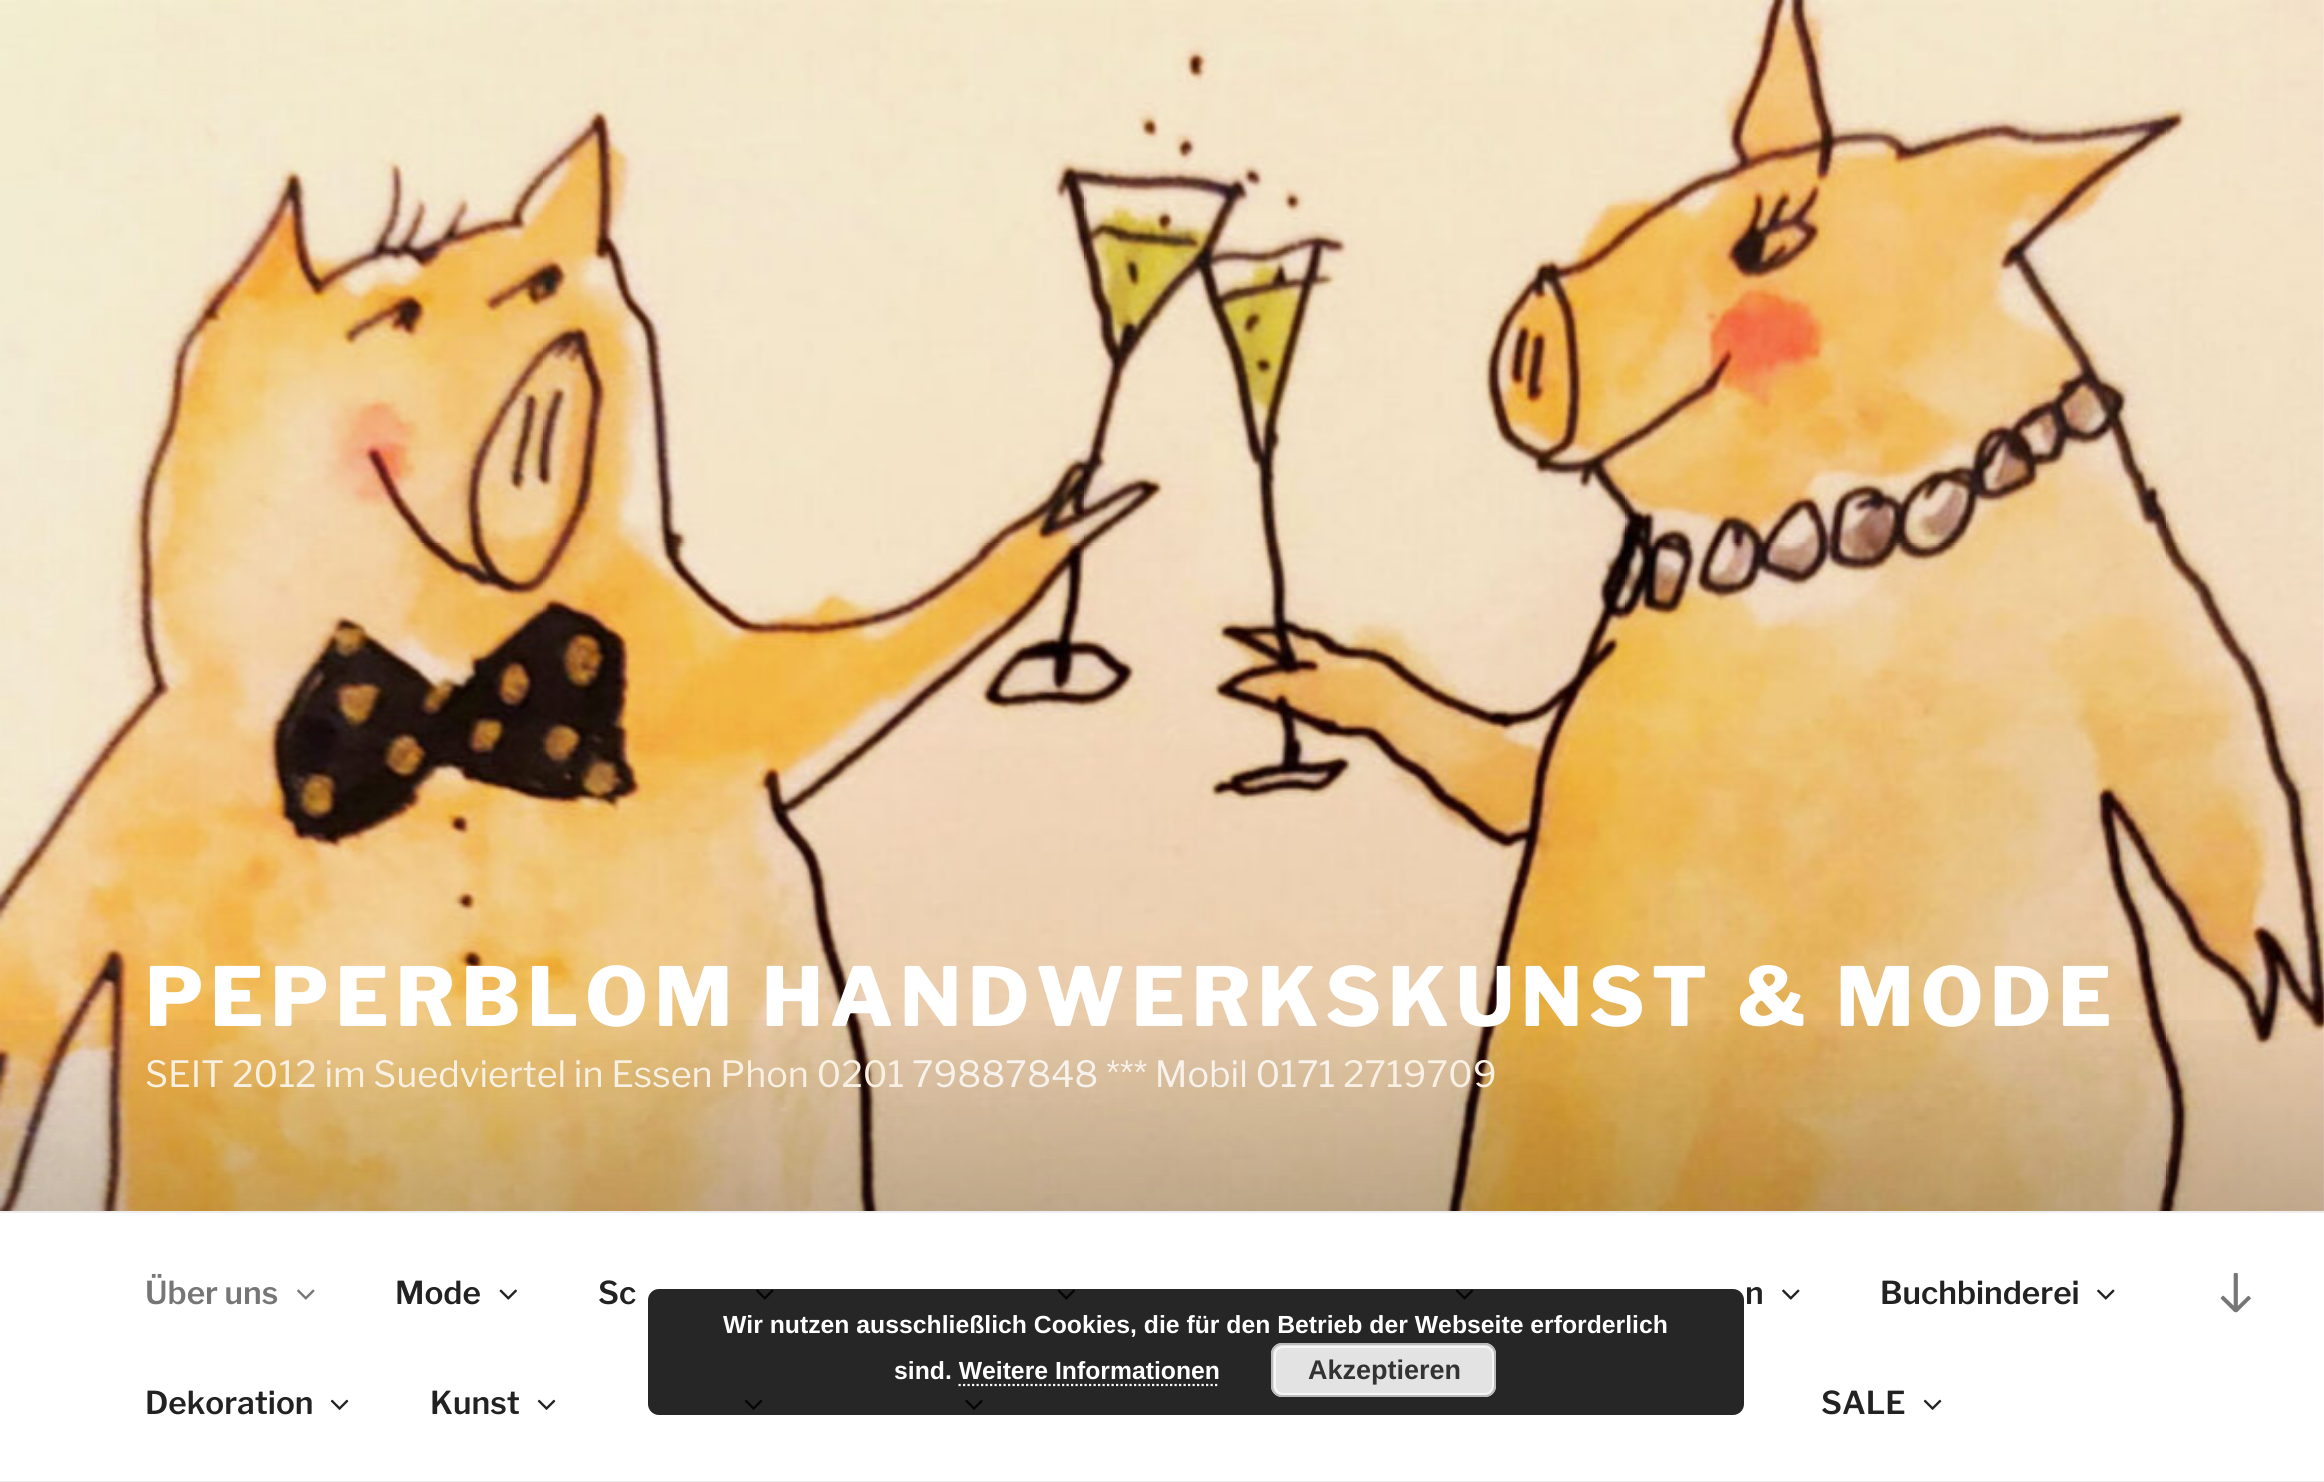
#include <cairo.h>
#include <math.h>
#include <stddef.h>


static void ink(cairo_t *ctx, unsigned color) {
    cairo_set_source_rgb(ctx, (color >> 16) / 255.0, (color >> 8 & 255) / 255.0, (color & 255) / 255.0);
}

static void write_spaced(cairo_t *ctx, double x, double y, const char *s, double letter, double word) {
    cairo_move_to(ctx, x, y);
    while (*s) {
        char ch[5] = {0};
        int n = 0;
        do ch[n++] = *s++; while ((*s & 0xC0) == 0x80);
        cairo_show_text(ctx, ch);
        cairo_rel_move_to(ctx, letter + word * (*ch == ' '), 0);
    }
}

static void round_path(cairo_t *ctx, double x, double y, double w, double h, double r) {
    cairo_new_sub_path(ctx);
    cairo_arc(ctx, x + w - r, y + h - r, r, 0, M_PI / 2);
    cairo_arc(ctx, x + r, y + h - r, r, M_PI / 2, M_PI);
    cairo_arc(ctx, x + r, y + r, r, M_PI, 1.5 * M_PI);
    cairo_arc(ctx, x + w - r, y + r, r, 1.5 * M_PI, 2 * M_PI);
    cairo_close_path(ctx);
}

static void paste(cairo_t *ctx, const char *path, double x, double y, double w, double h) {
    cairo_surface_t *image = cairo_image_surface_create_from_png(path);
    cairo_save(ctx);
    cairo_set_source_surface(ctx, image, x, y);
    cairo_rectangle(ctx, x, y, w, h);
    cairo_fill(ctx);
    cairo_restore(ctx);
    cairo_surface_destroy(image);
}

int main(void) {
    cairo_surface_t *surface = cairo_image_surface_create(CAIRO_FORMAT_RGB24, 2324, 1482);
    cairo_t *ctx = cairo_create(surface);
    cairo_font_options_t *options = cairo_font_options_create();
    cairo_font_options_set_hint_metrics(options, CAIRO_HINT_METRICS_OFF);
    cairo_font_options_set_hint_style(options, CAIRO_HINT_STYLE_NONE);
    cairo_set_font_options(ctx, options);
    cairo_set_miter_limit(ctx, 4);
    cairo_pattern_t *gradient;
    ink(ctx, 0xFFFFFF);
    cairo_paint(ctx);
    paste(ctx, "media/1.png", 0, 0, 2324, 1211);
    gradient = cairo_pattern_create_linear(1162, 994, 1162, 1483);
    cairo_pattern_add_color_stop_rgba(gradient, 0, 0, 0, 0, 0);
    cairo_pattern_add_color_stop_rgba(gradient, 0.75, 0, 0, 0, 0.3);
    cairo_pattern_add_color_stop_rgba(gradient, 1, 0, 0, 0, 0.3);
    cairo_set_source(ctx, gradient);
    cairo_pattern_destroy(gradient);
    cairo_rectangle(ctx, 0, 1020, 2324, 191);
    cairo_fill(ctx);
    cairo_select_font_face(ctx, "Libre Franklin Thin", CAIRO_FONT_SLANT_NORMAL, CAIRO_FONT_WEIGHT_NORMAL);
    cairo_set_font_size(ctx, 81);
    ink(ctx, 0xFFFFFF);
    write_spaced(ctx, 145, 1026, "PEPERBLOM HANDWERKSKUNST & MODE", 6.5, 0);
    cairo_select_font_face(ctx, "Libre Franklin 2 Thin", CAIRO_FONT_SLANT_NORMAL, CAIRO_FONT_WEIGHT_NORMAL);
    cairo_set_font_size(ctx, 36);
    ink(ctx, 0xF8F0E3);
    cairo_move_to(ctx, 145, 1087);
    cairo_show_text(ctx, "SEIT 2012 im Suedviertel in Essen Phon 0201");
    ink(ctx, 0xF7F2EC);
    cairo_move_to(ctx, 912, 1087);
    cairo_show_text(ctx, "79887848 *** Mobil 0171");
    ink(ctx, 0xF8F0E3);
    cairo_move_to(ctx, 1343, 1087);
    cairo_show_text(ctx, "2719709");
    ink(ctx, 0xEEEEEE);
    cairo_rectangle(ctx, 0, 1211, 2324, 2);
    cairo_fill(ctx);
    cairo_rectangle(ctx, 0, 1481, 2324, 1);
    cairo_fill(ctx);
    cairo_select_font_face(ctx, "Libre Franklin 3 Thin", CAIRO_FONT_SLANT_NORMAL, CAIRO_FONT_WEIGHT_NORMAL);
    cairo_set_font_size(ctx, 31.5);
    ink(ctx, 0x767676);
    cairo_move_to(ctx, 145, 1304);
    cairo_show_text(ctx, "Über uns");
    paste(ctx, "media/2.png", 297, 1289, 18, 11);
    ink(ctx, 0x222222);
    cairo_move_to(ctx, 395, 1304);
    cairo_show_text(ctx, "Mode");
    paste(ctx, "media/3.png", 499, 1289, 18, 11);
    cairo_move_to(ctx, 598, 1304);
    cairo_show_text(ctx, "Sc");
    paste(ctx, "media/4.png", 756, 1289, 18, 11);
    paste(ctx, "media/3.png", 1057, 1289, 18, 11);
    paste(ctx, "media/5.png", 1455, 1289, 19, 11);
    cairo_move_to(ctx, 1745, 1304);
    cairo_show_text(ctx, "n");
    paste(ctx, "media/4.png", 1782, 1289, 18, 11);
    cairo_move_to(ctx, 1880, 1304);
    cairo_show_text(ctx, "Buchbinderei");
    paste(ctx, "media/4.png", 2097, 1289, 18, 11);
    cairo_move_to(ctx, 145, 1414);
    cairo_show_text(ctx, "Dekoration");
    paste(ctx, "media/6.png", 330, 1399, 19, 11);
    cairo_move_to(ctx, 430, 1414);
    cairo_show_text(ctx, "Kunst");
    paste(ctx, "media/6.png", 537, 1399, 19, 11);
    paste(ctx, "media/6.png", 744, 1399, 19, 11);
    paste(ctx, "media/7.png", 965, 1399, 18, 11);
    cairo_move_to(ctx, 1821, 1414);
    cairo_show_text(ctx, "SALE");
    paste(ctx, "media/6.png", 1923, 1399, 19, 11);
    paste(ctx, "media/8.png", 2220, 1273, 31, 40);
    cairo_set_source_rgba(ctx, 0, 0, 0, 0.85);
    round_path(ctx, 648, 1289, 1096, 126, 11);
    cairo_fill(ctx);
    cairo_select_font_face(ctx, "Liberation Sans", CAIRO_FONT_SLANT_NORMAL, CAIRO_FONT_WEIGHT_BOLD);
    cairo_set_font_size(ctx, 24.75);
    ink(ctx, 0xFFFFFF);
    cairo_move_to(ctx, 723, 1333);
    cairo_show_text(ctx, "Wir nutzen ausschließlich Cookies, die für den Betrieb der Webseite erforderlich");
    cairo_move_to(ctx, 894, 1379);
    cairo_show_text(ctx, "sind. Weitere Informationen");
    ink(ctx, 0xE3E3E3);
    round_path(ctx, 1271, 1343, 225, 54, 11);
    cairo_fill(ctx);
    round_path(ctx, 1275, 1347, 218, 47, 8);
    ink(ctx, 0xF6F6F6);
    cairo_stroke(ctx);
    round_path(ctx, 1272, 1344, 223, 52, 10);
    ink(ctx, 0xBBBBBB);
    cairo_stroke(ctx);
    cairo_set_font_size(ctx, 27);
    ink(ctx, 0x333333);
    cairo_move_to(ctx, 1308, 1379);
    cairo_show_text(ctx, "Akzeptieren");
    cairo_new_path(ctx);
    cairo_move_to(ctx, 958.5, 1385);
    cairo_line_to(ctx, 1219.5, 1385);
    ink(ctx, 0xFFFFFF);
    cairo_set_line_width(ctx, 2.2);
    cairo_set_dash(ctx, (double[]){2.25, 2.25}, 2, 0);
    cairo_stroke(ctx);
    cairo_surface_write_to_png(surface, "image.png");
    cairo_font_options_destroy(options);
    cairo_destroy(ctx);
    cairo_surface_destroy(surface);
    return 0;
}
